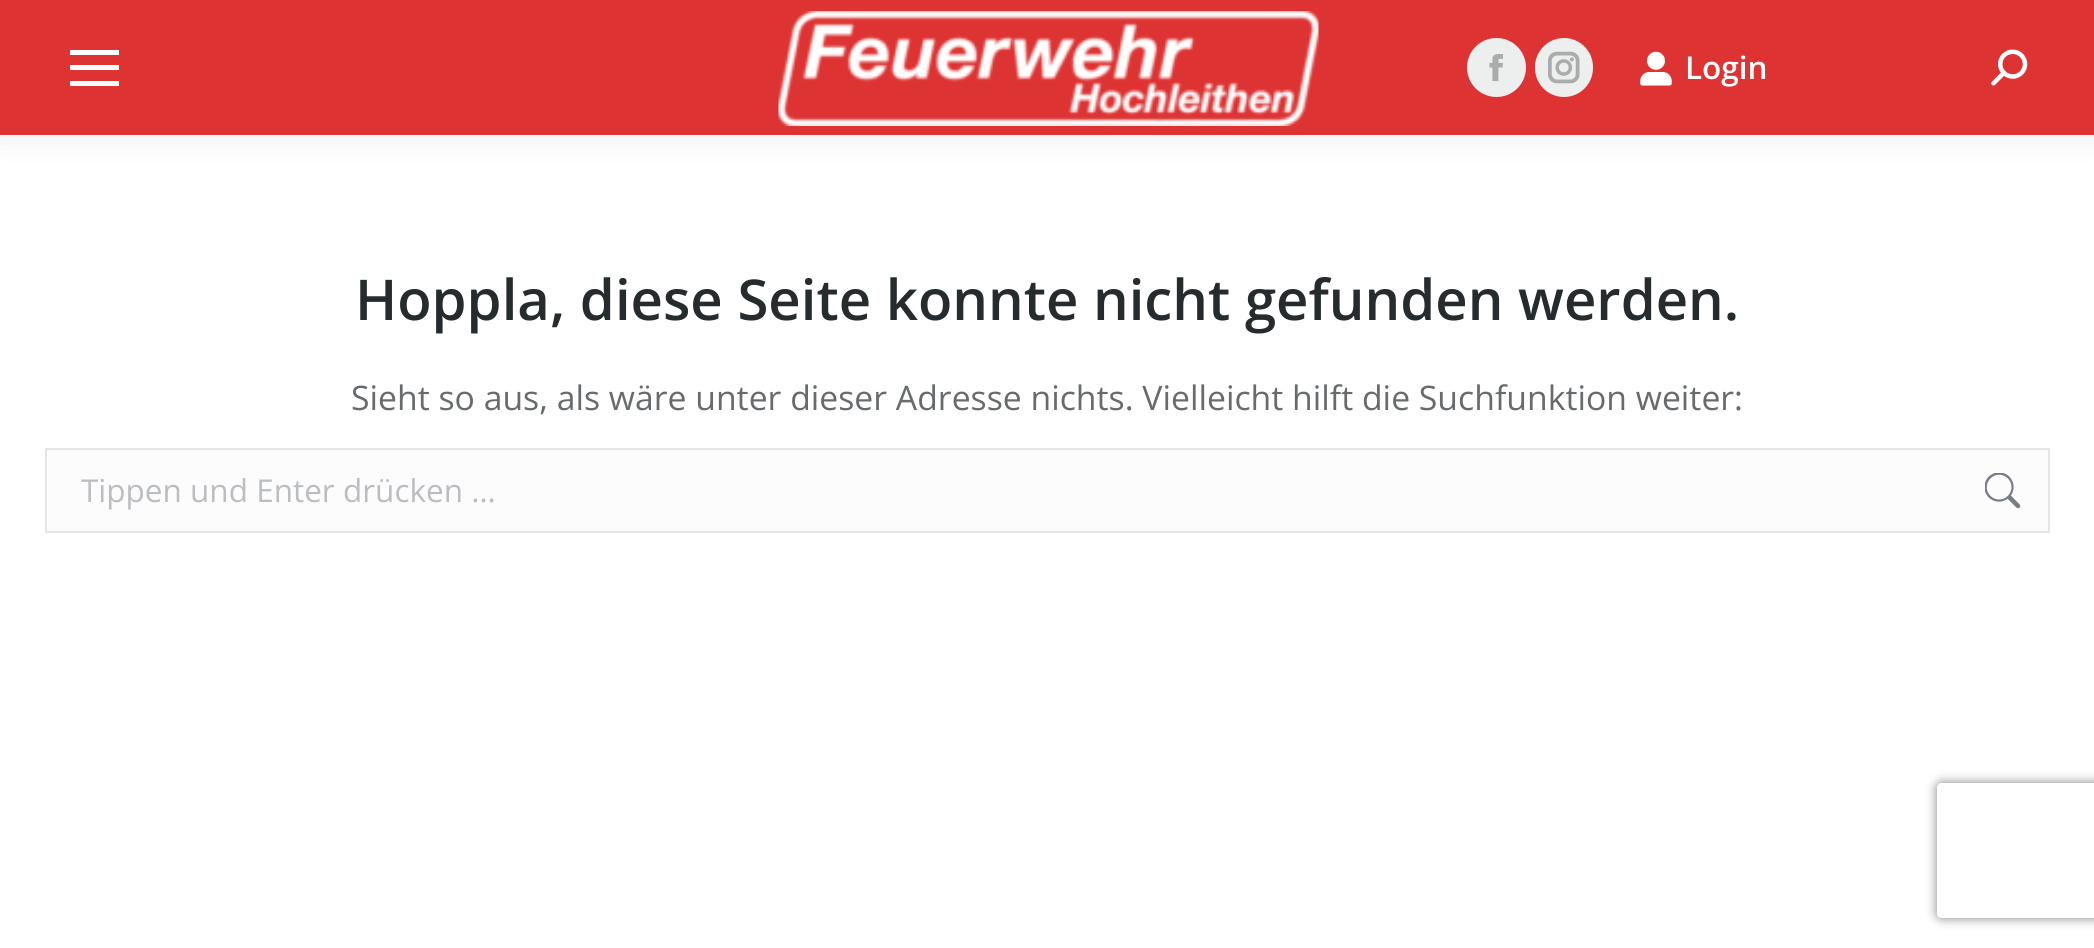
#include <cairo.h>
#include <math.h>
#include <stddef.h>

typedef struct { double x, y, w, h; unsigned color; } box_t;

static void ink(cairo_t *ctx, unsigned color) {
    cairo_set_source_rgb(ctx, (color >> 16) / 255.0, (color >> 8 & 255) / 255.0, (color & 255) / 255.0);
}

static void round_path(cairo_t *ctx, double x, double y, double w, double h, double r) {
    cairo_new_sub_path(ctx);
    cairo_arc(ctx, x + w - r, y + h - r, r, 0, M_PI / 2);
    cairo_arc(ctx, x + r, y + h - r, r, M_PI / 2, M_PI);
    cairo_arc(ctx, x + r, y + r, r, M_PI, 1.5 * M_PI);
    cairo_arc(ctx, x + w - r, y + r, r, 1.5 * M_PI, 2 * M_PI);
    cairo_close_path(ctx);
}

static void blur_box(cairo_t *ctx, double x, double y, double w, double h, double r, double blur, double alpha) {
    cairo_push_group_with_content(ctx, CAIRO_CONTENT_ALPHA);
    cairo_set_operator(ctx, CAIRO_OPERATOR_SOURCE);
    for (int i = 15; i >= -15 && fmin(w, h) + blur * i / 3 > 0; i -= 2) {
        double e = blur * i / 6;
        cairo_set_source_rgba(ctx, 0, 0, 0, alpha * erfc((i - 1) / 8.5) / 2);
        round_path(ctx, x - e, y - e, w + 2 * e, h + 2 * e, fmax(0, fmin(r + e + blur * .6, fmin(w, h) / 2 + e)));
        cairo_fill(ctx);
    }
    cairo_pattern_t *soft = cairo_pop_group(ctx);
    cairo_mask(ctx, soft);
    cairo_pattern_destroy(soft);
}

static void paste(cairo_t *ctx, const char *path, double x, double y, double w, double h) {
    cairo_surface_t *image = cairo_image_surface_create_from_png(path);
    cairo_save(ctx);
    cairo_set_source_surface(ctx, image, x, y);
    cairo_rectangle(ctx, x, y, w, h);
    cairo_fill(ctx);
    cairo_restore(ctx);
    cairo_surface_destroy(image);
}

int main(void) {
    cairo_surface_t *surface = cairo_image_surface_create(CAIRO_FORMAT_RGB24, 2094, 948);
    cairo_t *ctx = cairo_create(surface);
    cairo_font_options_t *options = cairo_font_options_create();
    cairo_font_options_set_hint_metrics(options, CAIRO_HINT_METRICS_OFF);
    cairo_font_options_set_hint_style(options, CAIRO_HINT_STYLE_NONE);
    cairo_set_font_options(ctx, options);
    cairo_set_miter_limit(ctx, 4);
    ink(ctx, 0xFFFFFF);
    cairo_paint(ctx);
    ink(ctx, 0x000000);
    blur_box(ctx, -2, -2, 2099, 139, 0, 17, 0.07);
    {
        static const box_t items[] = {
            {0, 0, 2094, 135, 0xDD3333},
            {70, 50, 49, 5, 0xFFFFFF},
            {70, 65, 49, 5, 0xFFFFFF},
            {70, 81, 49, 5, 0xFFFFFF},
        };
        for (size_t i = 0; i < sizeof items / sizeof *items; i++) {
            ink(ctx, items[i].color);
            cairo_rectangle(ctx, items[i].x, items[i].y, items[i].w, items[i].h);
            cairo_fill(ctx);
        }
    }
    paste(ctx, "media/1.png", 778, 11, 541, 115);
    ink(ctx, 0xEDEEEE);
    cairo_arc(ctx, 1496.5, 67.5, 29.5, 0, 2 * M_PI);
    cairo_fill(ctx);
    paste(ctx, "media/2.png", 1489, 54, 14, 27);
    round_path(ctx, 1535, 38, 58, 59, 29);
    cairo_fill(ctx);
    paste(ctx, "media/3.png", 1548, 51, 32, 33);
    paste(ctx, "media/4.png", 1640, 51, 32, 35);
    cairo_select_font_face(ctx, "Open Sans SemiBold", CAIRO_FONT_SLANT_NORMAL, CAIRO_FONT_WEIGHT_NORMAL);
    cairo_set_font_size(ctx, 31.5);
    ink(ctx, 0xFFFFFF);
    cairo_move_to(ctx, 1685, 79);
    cairo_show_text(ctx, "Login");
    paste(ctx, "media/5.png", 1991, 49, 37, 37);
    cairo_set_font_size(ctx, 56.25);
    ink(ctx, 0x262B2E);
    cairo_move_to(ctx, 355, 320);
    cairo_show_text(ctx, "Hoppla, diese Seite konnte nicht gefunden werden.");
    cairo_select_font_face(ctx, "Open Sans", CAIRO_FONT_SLANT_NORMAL, CAIRO_FONT_WEIGHT_NORMAL);
    cairo_set_font_size(ctx, 33.75);
    ink(ctx, 0x676B6D);
    cairo_move_to(ctx, 351, 410);
    cairo_show_text(ctx, "Sieht so aus, als wäre unter dieser Adresse nichts. Vielleicht hilft die Suchfunktion weiter:");
    ink(ctx, 0xFCFCFC);
    cairo_rectangle(ctx, 46, 449, 2003, 83);
    cairo_fill_preserve(ctx);
    ink(ctx, 0xE4E5E7);
    cairo_stroke(ctx);
    cairo_set_font_size(ctx, 31.5);
    ink(ctx, 0xBABDC1);
    cairo_move_to(ctx, 81, 502);
    cairo_show_text(ctx, "Tippen und Enter drücken …");
    paste(ctx, "media/6.png", 1985, 473, 36, 36);
    cairo_save(ctx);
    cairo_set_fill_rule(ctx, CAIRO_FILL_RULE_EVEN_ODD);
    cairo_new_path(ctx);
    cairo_move_to(ctx, 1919, 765);
    cairo_line_to(ctx, 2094, 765);
    cairo_line_to(ctx, 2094, 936);
    cairo_line_to(ctx, 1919, 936);
    cairo_close_path(ctx);
    cairo_move_to(ctx, 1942, 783);
    cairo_line_to(ctx, 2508, 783);
    cairo_curve_to(ctx, 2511, 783, 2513, 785, 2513, 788);
    cairo_line_to(ctx, 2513, 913);
    cairo_curve_to(ctx, 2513, 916, 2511, 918, 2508, 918);
    cairo_line_to(ctx, 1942, 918);
    cairo_curve_to(ctx, 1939, 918, 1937, 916, 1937, 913);
    cairo_line_to(ctx, 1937, 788);
    cairo_curve_to(ctx, 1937, 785, 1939, 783, 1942, 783);
    cairo_close_path(ctx);
    cairo_clip(ctx);
    ink(ctx, 0x808080);
    blur_box(ctx, 1937, 783, 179, 135, 5, 5.5, 1);
    cairo_restore(ctx);
    cairo_surface_write_to_png(surface, "image.png");
    cairo_font_options_destroy(options);
    cairo_destroy(ctx);
    cairo_surface_destroy(surface);
    return 0;
}
